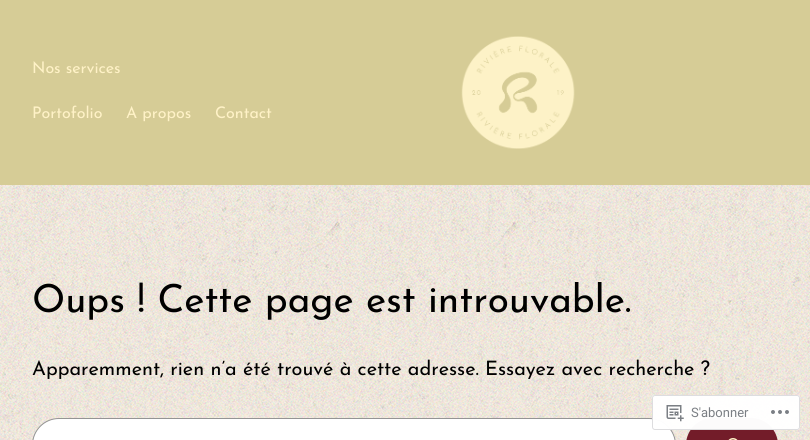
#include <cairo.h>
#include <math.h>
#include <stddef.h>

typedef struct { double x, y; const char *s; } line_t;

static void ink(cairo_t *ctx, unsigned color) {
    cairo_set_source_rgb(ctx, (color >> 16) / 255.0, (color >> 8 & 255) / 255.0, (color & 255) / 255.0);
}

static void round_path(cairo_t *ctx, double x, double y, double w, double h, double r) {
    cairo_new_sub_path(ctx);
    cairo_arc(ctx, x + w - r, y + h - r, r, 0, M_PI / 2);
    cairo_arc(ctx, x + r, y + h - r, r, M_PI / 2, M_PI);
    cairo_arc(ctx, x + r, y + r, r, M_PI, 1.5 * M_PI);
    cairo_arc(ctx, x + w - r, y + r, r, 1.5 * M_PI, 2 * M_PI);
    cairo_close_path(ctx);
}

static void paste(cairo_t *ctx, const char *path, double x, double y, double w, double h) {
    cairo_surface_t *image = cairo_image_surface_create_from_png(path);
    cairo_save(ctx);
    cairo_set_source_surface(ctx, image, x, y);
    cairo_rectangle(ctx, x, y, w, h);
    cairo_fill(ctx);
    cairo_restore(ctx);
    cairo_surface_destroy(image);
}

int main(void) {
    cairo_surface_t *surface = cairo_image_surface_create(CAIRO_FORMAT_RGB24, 810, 440);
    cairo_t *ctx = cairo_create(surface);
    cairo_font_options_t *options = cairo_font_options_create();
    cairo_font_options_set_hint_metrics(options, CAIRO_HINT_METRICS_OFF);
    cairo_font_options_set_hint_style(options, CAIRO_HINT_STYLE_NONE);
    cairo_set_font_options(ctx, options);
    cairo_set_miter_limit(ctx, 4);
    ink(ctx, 0xFFFFFF);
    cairo_paint(ctx);
    paste(ctx, "media/1.png", 0, 185, 810, 255);
    ink(ctx, 0xD6CC96);
    cairo_rectangle(ctx, 0, 0, 810, 185);
    cairo_fill(ctx);
    cairo_select_font_face(ctx, "Josefin Sans", CAIRO_FONT_SLANT_NORMAL, CAIRO_FONT_WEIGHT_NORMAL);
    cairo_set_font_size(ctx, 16);
    ink(ctx, 0xFFF2C7);
    {
        static const line_t items[] = {
            {32, 73, "Nos services"},
            {32, 118, "Portofolio"},
            {126, 118, "A propos"},
            {215, 118, "Contact"},
        };
        for (size_t i = 0; i < sizeof items / sizeof *items; i++) {
            cairo_move_to(ctx, items[i].x, items[i].y);
            cairo_show_text(ctx, items[i].s);
        }
    }
    paste(ctx, "media/2.png", 461, 36, 114, 113);
    cairo_set_font_size(ctx, 38.75);
    ink(ctx, 0x000000);
    cairo_move_to(ctx, 32, 312);
    cairo_show_text(ctx, "Oups ! Cette page est introuvable.");
    cairo_set_font_size(ctx, 19.85);
    cairo_move_to(ctx, 32, 375);
    cairo_show_text(ctx, "Apparemment, rien n’a été trouvé à cette adresse. Essayez avec recherche ?");
    ink(ctx, 0xFFFFFF);
    round_path(ctx, 32.5, 418.5, 643, 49, 26.5);
    cairo_fill_preserve(ctx);
    ink(ctx, 0x949494);
    cairo_set_line_width(ctx, 1);
    cairo_stroke(ctx);
    ink(ctx, 0x731C29);
    round_path(ctx, 686, 418, 92, 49, 27);
    cairo_fill(ctx);
    paste(ctx, "media/3.png", 728, 438, 10, 2);
    cairo_set_source_rgba(ctx, 1, 1, 1, 0.98);
    round_path(ctx, 652, 395, 148, 35, 3);
    cairo_fill(ctx);
    round_path(ctx, 652.5, 395.5, 147, 34, 2.5);
    cairo_set_source_rgba(ctx, 0.863, 0.863, 0.871, 0.98);
    cairo_stroke(ctx);
    paste(ctx, "media/4.png", 666, 405, 18, 17);
    cairo_select_font_face(ctx, "Roboto", CAIRO_FONT_SLANT_NORMAL, CAIRO_FONT_WEIGHT_NORMAL);
    cairo_set_font_size(ctx, 13);
    ink(ctx, 0x7B7F84);
    cairo_move_to(ctx, 691, 417);
    cairo_show_text(ctx, "S'abonner");
    paste(ctx, "media/5.png", 771, 410, 18, 4);
    cairo_surface_write_to_png(surface, "image.png");
    cairo_font_options_destroy(options);
    cairo_destroy(ctx);
    cairo_surface_destroy(surface);
    return 0;
}
